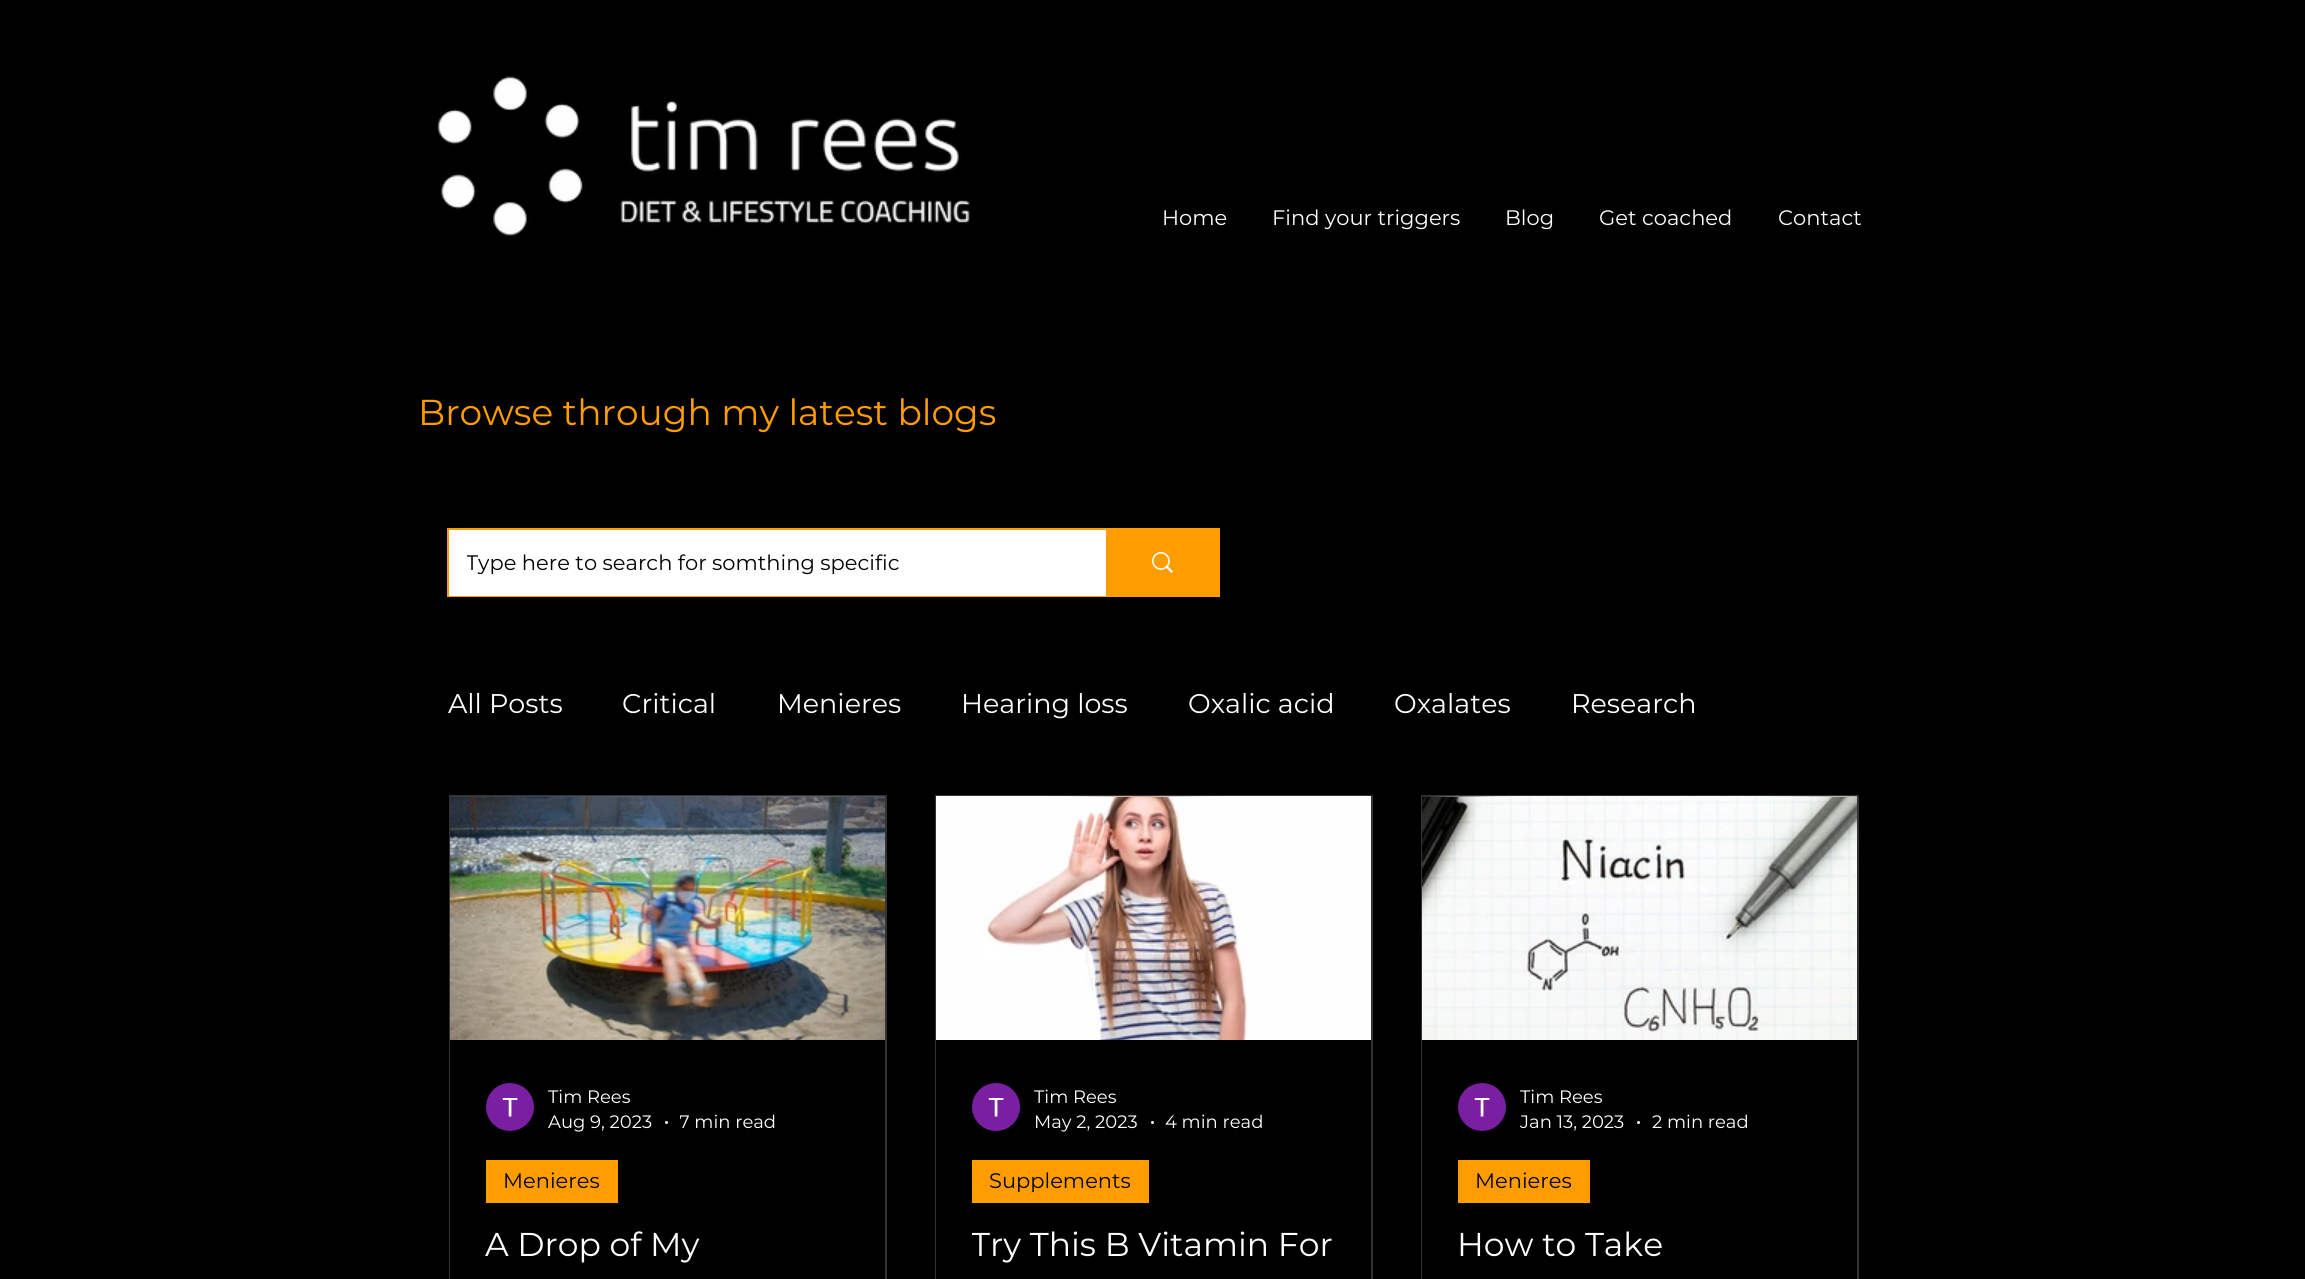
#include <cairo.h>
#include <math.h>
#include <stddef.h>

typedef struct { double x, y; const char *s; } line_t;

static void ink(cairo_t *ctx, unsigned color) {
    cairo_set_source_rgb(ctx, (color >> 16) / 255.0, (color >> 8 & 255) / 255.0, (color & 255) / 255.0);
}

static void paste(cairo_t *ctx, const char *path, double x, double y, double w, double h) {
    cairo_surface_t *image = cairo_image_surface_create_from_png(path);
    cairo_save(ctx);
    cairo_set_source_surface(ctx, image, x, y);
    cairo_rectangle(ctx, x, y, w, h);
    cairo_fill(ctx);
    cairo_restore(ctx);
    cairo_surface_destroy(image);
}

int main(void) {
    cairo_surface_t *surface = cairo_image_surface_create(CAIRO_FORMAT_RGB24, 2305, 1279);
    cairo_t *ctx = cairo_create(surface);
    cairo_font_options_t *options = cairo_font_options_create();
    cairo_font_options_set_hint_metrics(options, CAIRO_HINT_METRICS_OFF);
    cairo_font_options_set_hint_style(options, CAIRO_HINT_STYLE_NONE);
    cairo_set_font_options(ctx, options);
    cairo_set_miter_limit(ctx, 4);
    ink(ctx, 0x000000);
    cairo_paint(ctx);
    paste(ctx, "media/1.png", 437, 76, 533, 160);
    cairo_select_font_face(ctx, "Montserrat", CAIRO_FONT_SLANT_NORMAL, CAIRO_FONT_WEIGHT_NORMAL);
    cairo_set_font_size(ctx, 21);
    ink(ctx, 0xFFFFFF);
    {
        static const line_t items[] = {
            {1162, 225, "Home"},
            {1272, 225, "Find your triggers"},
            {1505, 225, "Blog"},
            {1599, 225, "Get coached"},
            {1778, 225, "Contact"},
        };
        for (size_t i = 0; i < sizeof items / sizeof *items; i++) {
            cairo_move_to(ctx, items[i].x, items[i].y);
            cairo_show_text(ctx, items[i].s);
        }
    }
    cairo_set_font_size(ctx, 36);
    ink(ctx, 0xFF9D00);
    cairo_move_to(ctx, 418, 425);
    cairo_show_text(ctx, "Browse through my latest blogs");
    cairo_rectangle(ctx, 448, 529, 771, 67);
    cairo_stroke(ctx);
    ink(ctx, 0xFFFFFF);
    cairo_rectangle(ctx, 449, 530, 657, 66);
    cairo_fill(ctx);
    cairo_save(ctx);
    cairo_rectangle(ctx, 467, 549, 576, 27);
    cairo_clip(ctx);
    cairo_set_font_size(ctx, 21);
    ink(ctx, 0x000000);
    cairo_move_to(ctx, 466, 570);
    cairo_show_text(ctx, "Type here to search for somthing specific");
    cairo_restore(ctx);
    ink(ctx, 0xFF9D00);
    cairo_rectangle(ctx, 1106, 530, 112, 65);
    cairo_fill(ctx);
    paste(ctx, "media/2.png", 1152, 552, 21, 21);
    cairo_set_font_size(ctx, 27);
    ink(ctx, 0xFFFFFF);
    {
        static const line_t items[] = {
            {448, 713, "All Posts"},
            {622, 713, "Critical"},
            {777, 713, "Menieres"},
            {961, 713, "Hearing loss"},
            {1188, 713, "Oxalic acid"},
            {1394, 713, "Oxalates"},
            {1571, 713, "Research"},
        };
        for (size_t i = 0; i < sizeof items / sizeof *items; i++) {
            cairo_move_to(ctx, items[i].x, items[i].y);
            cairo_show_text(ctx, items[i].s);
        }
    }
    cairo_rectangle(ctx, 450, 796, 436, 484);
    ink(ctx, 0x333333);
    cairo_stroke(ctx);
    paste(ctx, "media/3.png", 450, 796, 435, 1);
    paste(ctx, "media/4.png", 450, 797, 435, 243);
    ink(ctx, 0x000000);
    cairo_rectangle(ctx, 450, 1040, 1, 239);
    cairo_fill(ctx);
    paste(ctx, "media/5.png", 486, 1083, 48, 48);
    cairo_set_font_size(ctx, 18);
    ink(ctx, 0xFFFFFF);
    cairo_move_to(ctx, 548, 1103);
    cairo_show_text(ctx, "Tim Rees");
    cairo_move_to(ctx, 548, 1128);
    cairo_show_text(ctx, "Aug 9, 2023");
    cairo_new_path(ctx);
    cairo_arc(ctx, 666.5, 1122.5, 1.5, 0, 2 * M_PI);
    cairo_fill(ctx);
    cairo_save(ctx);
    cairo_rectangle(ctx, 680, 1110, 97, 23);
    cairo_clip(ctx);
    cairo_move_to(ctx, 679, 1128);
    cairo_show_text(ctx, "7 min read");
    cairo_restore(ctx);
    ink(ctx, 0xFF9D00);
    cairo_rectangle(ctx, 486, 1160, 132, 43);
    cairo_fill(ctx);
    cairo_set_font_size(ctx, 21);
    ink(ctx, 0x000000);
    cairo_move_to(ctx, 503, 1188);
    cairo_show_text(ctx, "Menieres");
    cairo_set_font_size(ctx, 33);
    ink(ctx, 0xFFFFFF);
    cairo_move_to(ctx, 485, 1256);
    cairo_show_text(ctx, "A Drop of My");
    cairo_rectangle(ctx, 936, 796, 436, 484);
    ink(ctx, 0x333333);
    cairo_stroke(ctx);
    paste(ctx, "media/6.png", 936, 796, 435, 1);
    paste(ctx, "media/7.png", 936, 797, 435, 243);
    ink(ctx, 0x000000);
    cairo_rectangle(ctx, 936, 1040, 1, 239);
    cairo_fill(ctx);
    paste(ctx, "media/5.png", 972, 1083, 48, 48);
    cairo_set_font_size(ctx, 18);
    ink(ctx, 0xFFFFFF);
    cairo_move_to(ctx, 1034, 1103);
    cairo_show_text(ctx, "Tim Rees");
    cairo_move_to(ctx, 1034, 1128);
    cairo_show_text(ctx, "May 2, 2023");
    cairo_new_path(ctx);
    cairo_arc(ctx, 1152.5, 1122.5, 1.5, 0, 2 * M_PI);
    cairo_fill(ctx);
    cairo_move_to(ctx, 1165, 1128);
    cairo_show_text(ctx, "4 min read");
    ink(ctx, 0xFF9D00);
    cairo_rectangle(ctx, 972, 1160, 177, 43);
    cairo_fill(ctx);
    cairo_set_font_size(ctx, 21);
    ink(ctx, 0x000000);
    cairo_move_to(ctx, 989, 1188);
    cairo_show_text(ctx, "Supplements");
    cairo_save(ctx);
    cairo_rectangle(ctx, 972, 1223, 363, 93);
    cairo_clip(ctx);
    cairo_set_font_size(ctx, 33);
    ink(ctx, 0xFFFFFF);
    cairo_move_to(ctx, 971, 1256);
    cairo_show_text(ctx, "Try This B Vitamin For");
    cairo_restore(ctx);
    cairo_rectangle(ctx, 1422, 796, 436, 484);
    ink(ctx, 0x333333);
    cairo_stroke(ctx);
    paste(ctx, "media/8.png", 1422, 796, 435, 1);
    paste(ctx, "media/9.png", 1422, 797, 435, 243);
    ink(ctx, 0x000000);
    cairo_rectangle(ctx, 1422, 1040, 1, 239);
    cairo_fill(ctx);
    paste(ctx, "media/5.png", 1458, 1083, 48, 48);
    cairo_set_font_size(ctx, 18);
    ink(ctx, 0xFFFFFF);
    cairo_move_to(ctx, 1520, 1103);
    cairo_show_text(ctx, "Tim Rees");
    cairo_move_to(ctx, 1520, 1128);
    cairo_show_text(ctx, "Jan 13, 2023");
    cairo_new_path(ctx);
    cairo_arc(ctx, 1638.5, 1122.5, 1.5, 0, 2 * M_PI);
    cairo_fill(ctx);
    cairo_move_to(ctx, 1652, 1128);
    cairo_show_text(ctx, "2 min read");
    ink(ctx, 0xFF9D00);
    cairo_rectangle(ctx, 1458, 1160, 132, 43);
    cairo_fill(ctx);
    cairo_set_font_size(ctx, 21);
    ink(ctx, 0x000000);
    cairo_move_to(ctx, 1475, 1188);
    cairo_show_text(ctx, "Menieres");
    cairo_set_font_size(ctx, 33);
    ink(ctx, 0xFFFFFF);
    cairo_move_to(ctx, 1457, 1256);
    cairo_show_text(ctx, "How to Take");
    cairo_surface_write_to_png(surface, "image.png");
    cairo_font_options_destroy(options);
    cairo_destroy(ctx);
    cairo_surface_destroy(surface);
    return 0;
}
